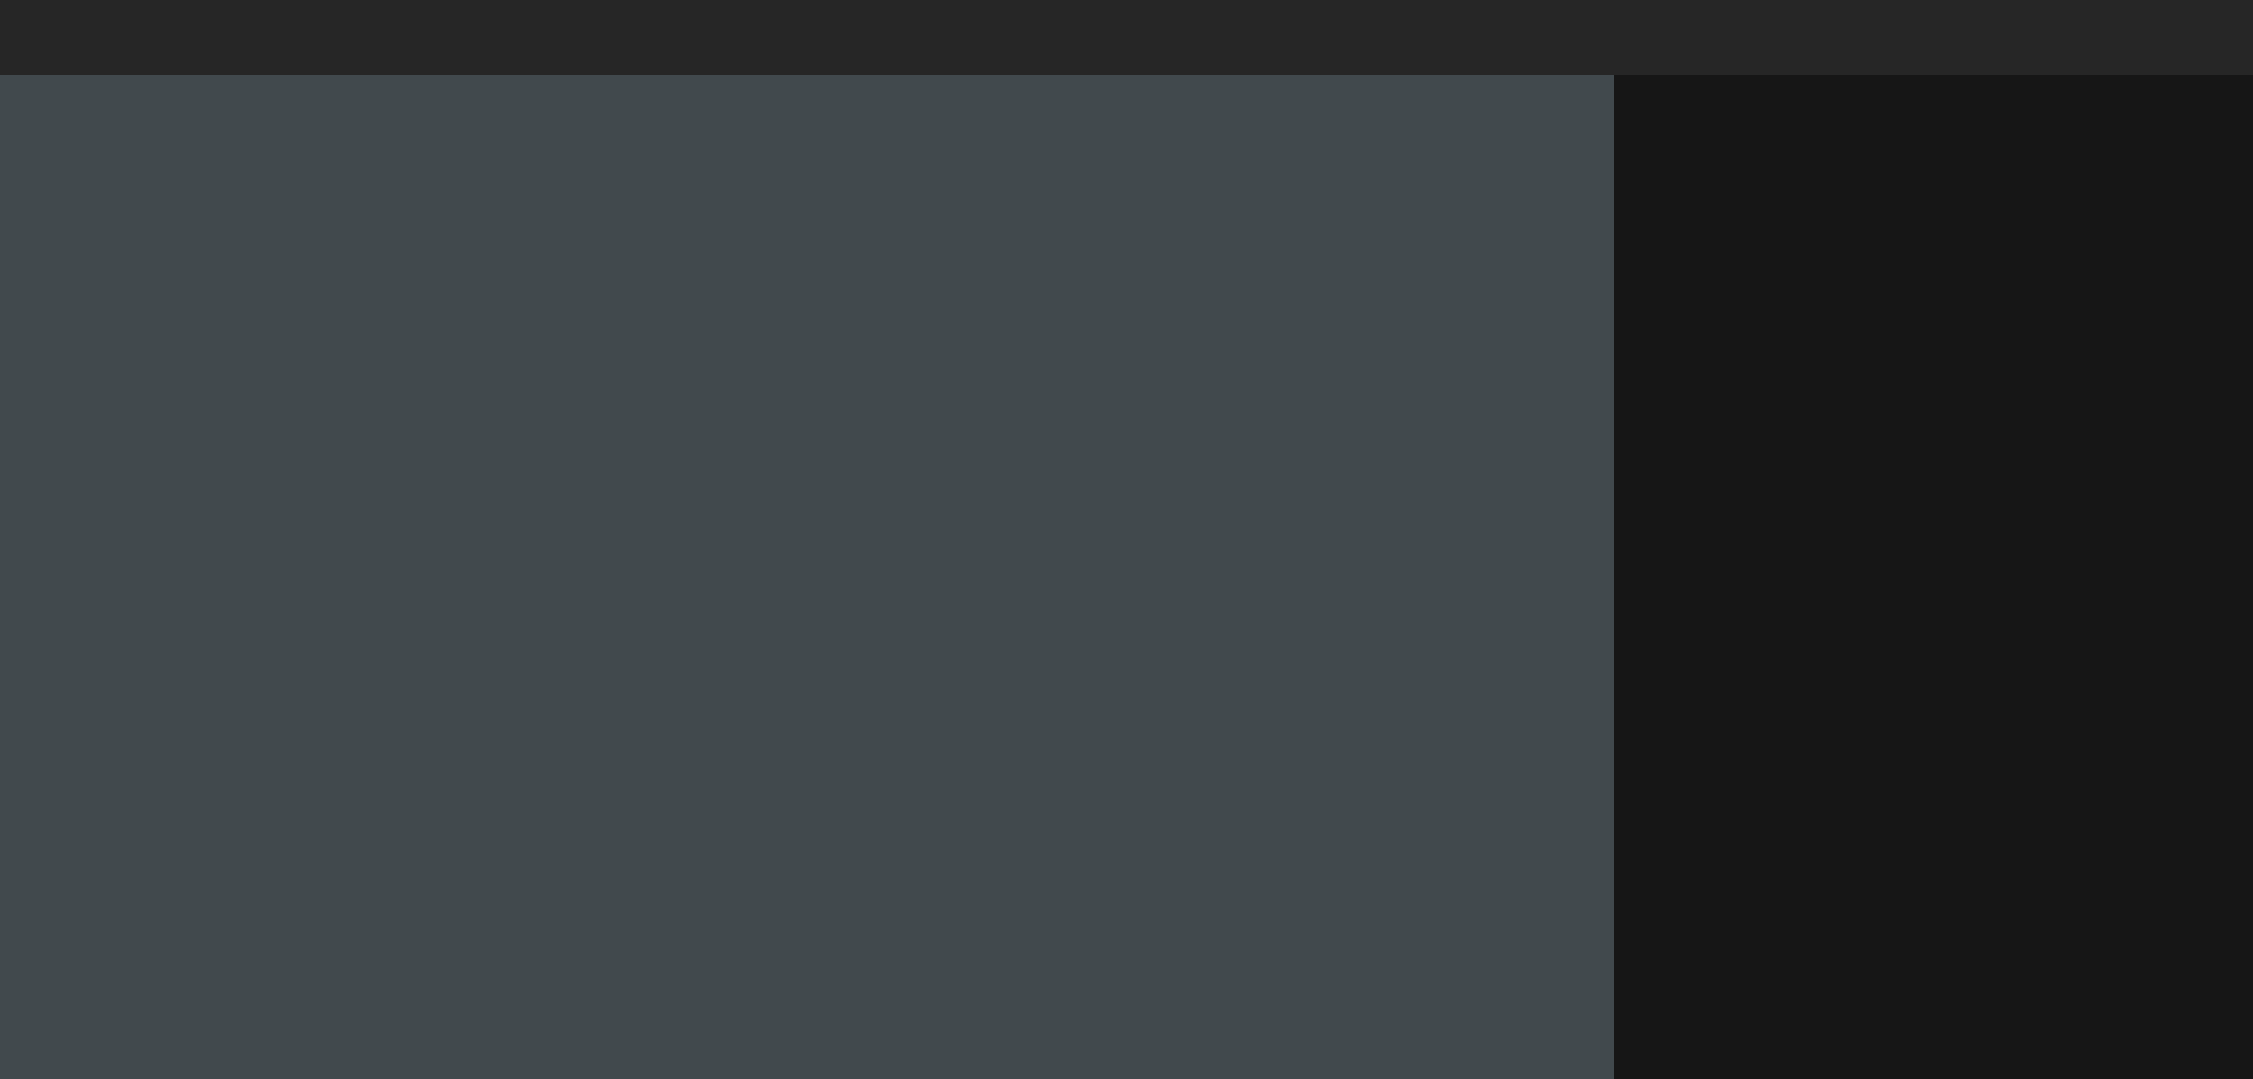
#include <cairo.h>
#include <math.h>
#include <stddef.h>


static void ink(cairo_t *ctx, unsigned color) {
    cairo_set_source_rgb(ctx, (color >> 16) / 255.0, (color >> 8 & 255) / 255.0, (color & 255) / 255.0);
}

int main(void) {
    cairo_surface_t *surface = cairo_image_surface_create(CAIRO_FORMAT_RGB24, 2253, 1079);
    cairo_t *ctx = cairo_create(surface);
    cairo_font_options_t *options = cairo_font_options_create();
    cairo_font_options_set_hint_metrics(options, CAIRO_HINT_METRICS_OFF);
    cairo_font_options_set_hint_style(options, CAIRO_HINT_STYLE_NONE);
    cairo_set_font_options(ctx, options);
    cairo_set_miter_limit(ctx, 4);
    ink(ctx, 0x262626);
    cairo_paint(ctx);
    ink(ctx, 0x41494D);
    cairo_rectangle(ctx, 0, 75, 1614, 1004);
    cairo_fill(ctx);
    ink(ctx, 0x161616);
    cairo_rectangle(ctx, 1614, 75, 639, 1004);
    cairo_fill(ctx);
    cairo_surface_write_to_png(surface, "image.png");
    cairo_font_options_destroy(options);
    cairo_destroy(ctx);
    cairo_surface_destroy(surface);
    return 0;
}
